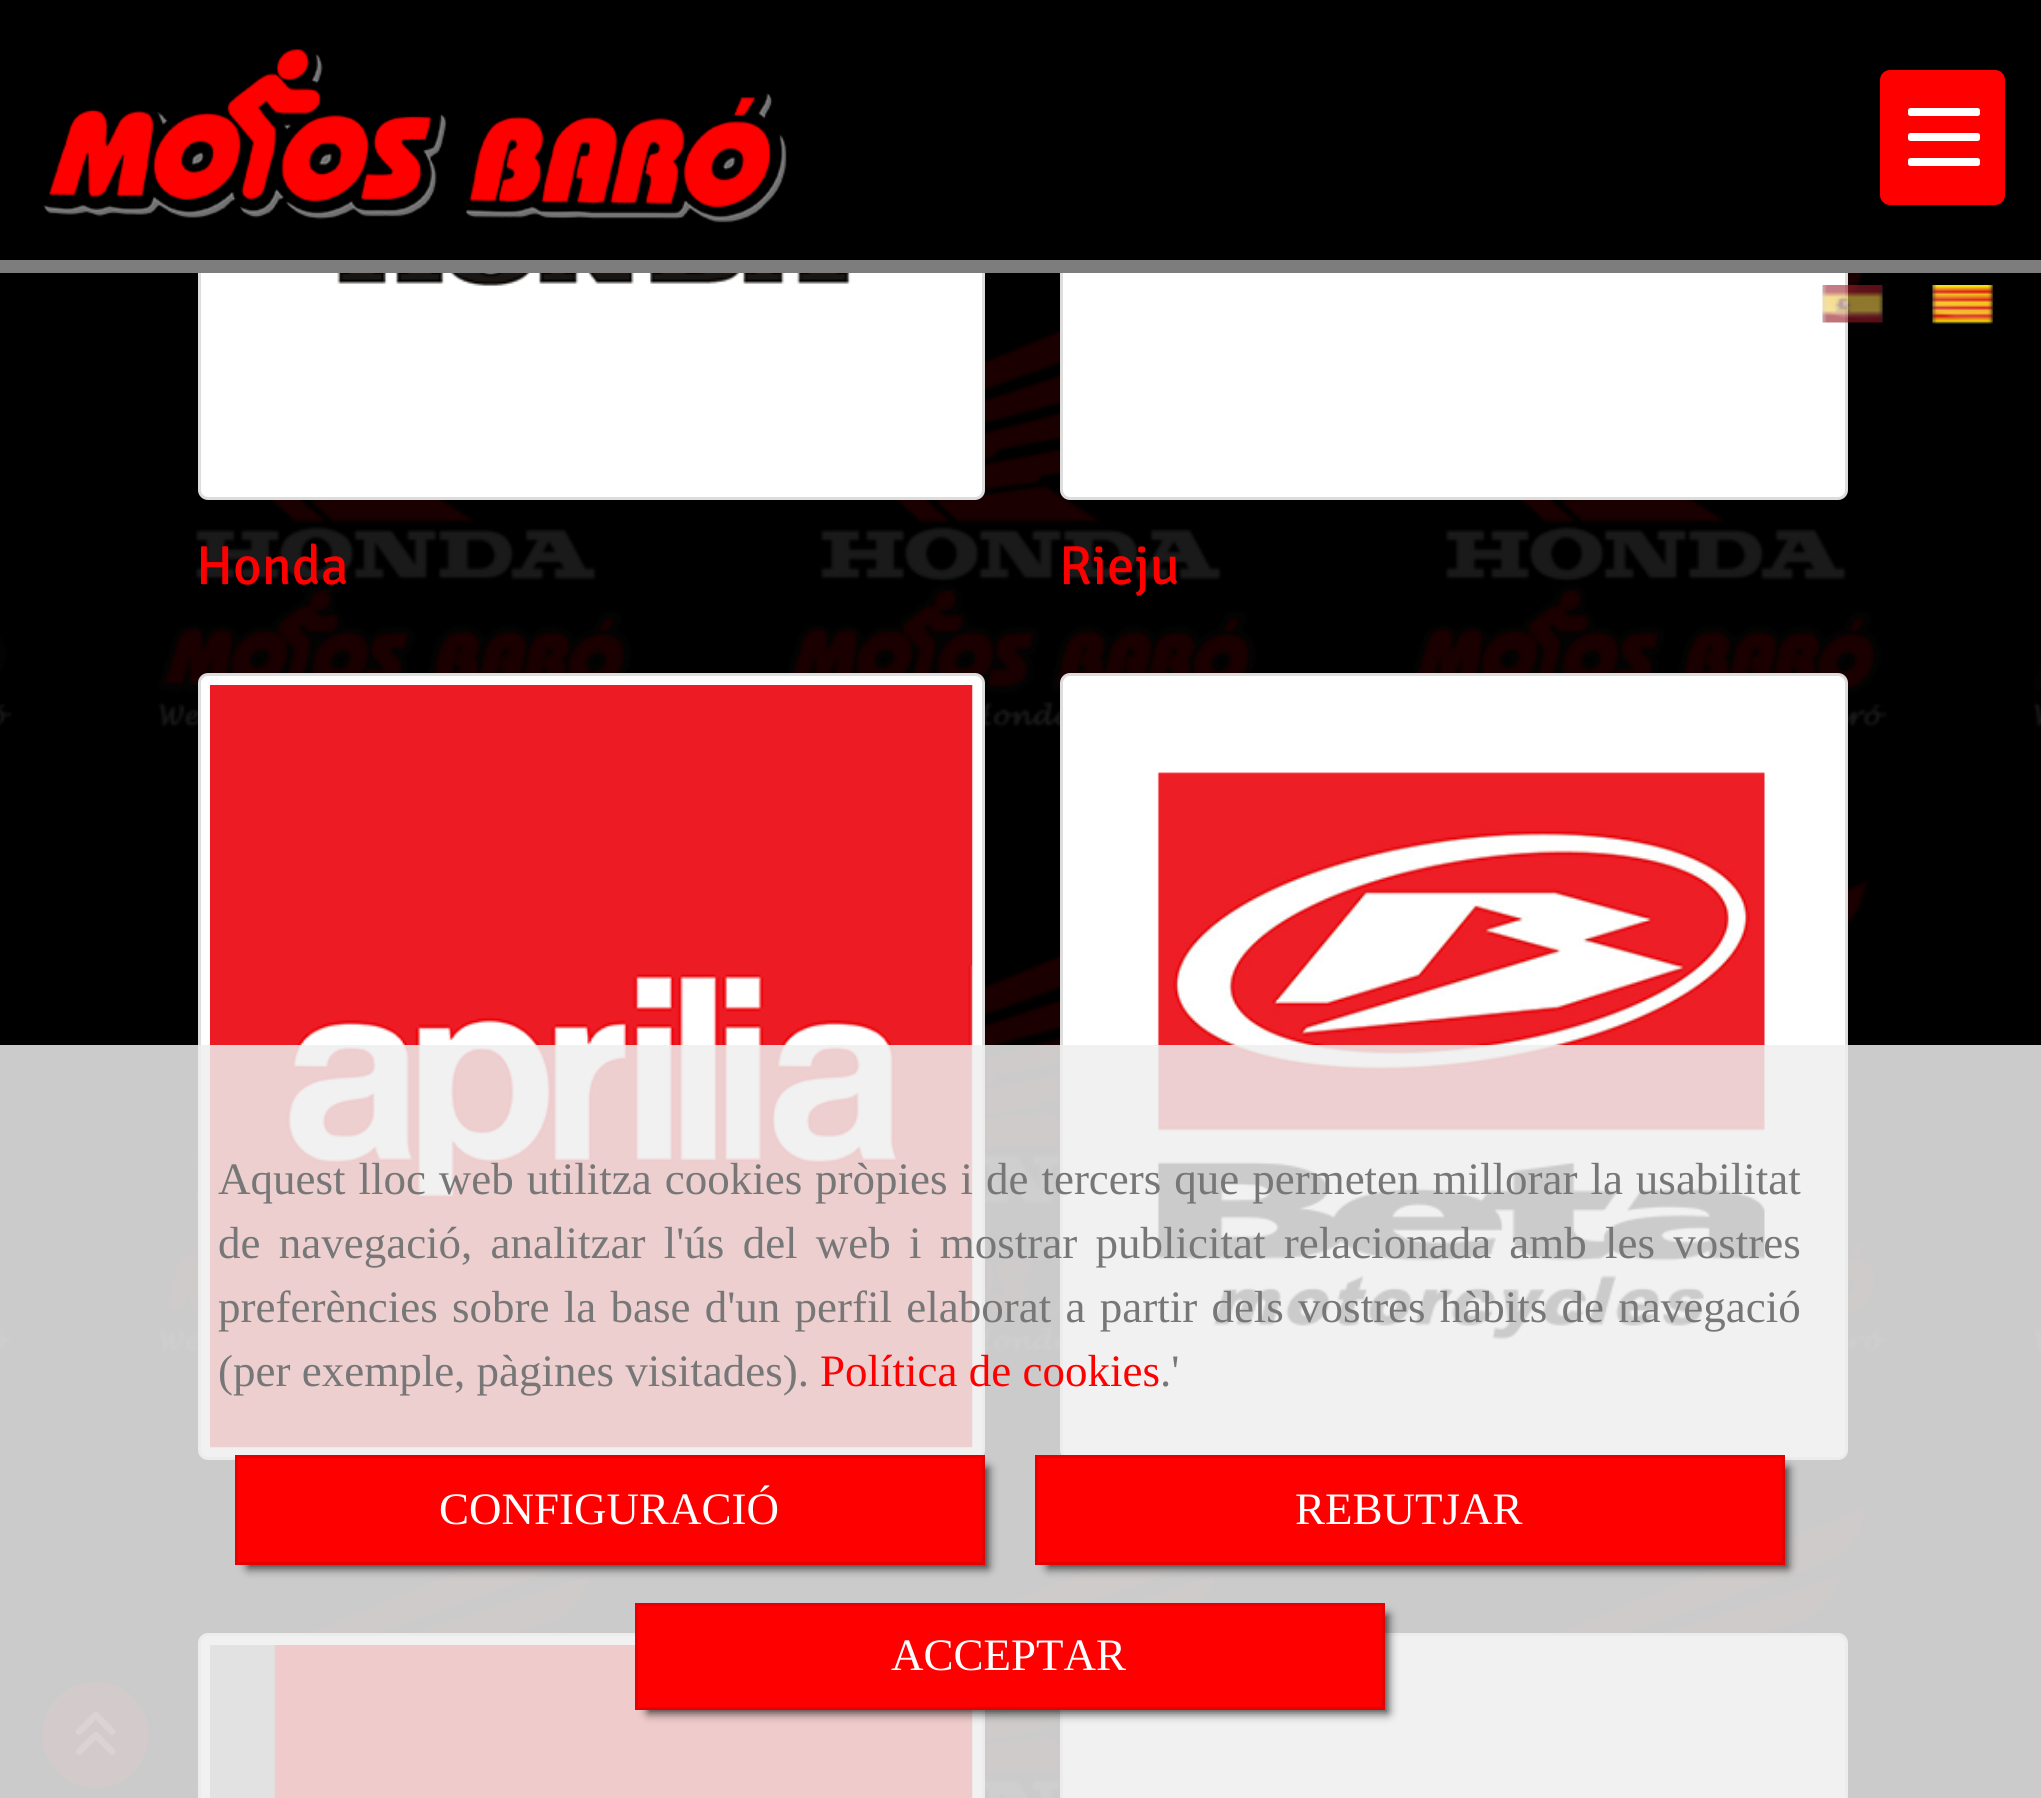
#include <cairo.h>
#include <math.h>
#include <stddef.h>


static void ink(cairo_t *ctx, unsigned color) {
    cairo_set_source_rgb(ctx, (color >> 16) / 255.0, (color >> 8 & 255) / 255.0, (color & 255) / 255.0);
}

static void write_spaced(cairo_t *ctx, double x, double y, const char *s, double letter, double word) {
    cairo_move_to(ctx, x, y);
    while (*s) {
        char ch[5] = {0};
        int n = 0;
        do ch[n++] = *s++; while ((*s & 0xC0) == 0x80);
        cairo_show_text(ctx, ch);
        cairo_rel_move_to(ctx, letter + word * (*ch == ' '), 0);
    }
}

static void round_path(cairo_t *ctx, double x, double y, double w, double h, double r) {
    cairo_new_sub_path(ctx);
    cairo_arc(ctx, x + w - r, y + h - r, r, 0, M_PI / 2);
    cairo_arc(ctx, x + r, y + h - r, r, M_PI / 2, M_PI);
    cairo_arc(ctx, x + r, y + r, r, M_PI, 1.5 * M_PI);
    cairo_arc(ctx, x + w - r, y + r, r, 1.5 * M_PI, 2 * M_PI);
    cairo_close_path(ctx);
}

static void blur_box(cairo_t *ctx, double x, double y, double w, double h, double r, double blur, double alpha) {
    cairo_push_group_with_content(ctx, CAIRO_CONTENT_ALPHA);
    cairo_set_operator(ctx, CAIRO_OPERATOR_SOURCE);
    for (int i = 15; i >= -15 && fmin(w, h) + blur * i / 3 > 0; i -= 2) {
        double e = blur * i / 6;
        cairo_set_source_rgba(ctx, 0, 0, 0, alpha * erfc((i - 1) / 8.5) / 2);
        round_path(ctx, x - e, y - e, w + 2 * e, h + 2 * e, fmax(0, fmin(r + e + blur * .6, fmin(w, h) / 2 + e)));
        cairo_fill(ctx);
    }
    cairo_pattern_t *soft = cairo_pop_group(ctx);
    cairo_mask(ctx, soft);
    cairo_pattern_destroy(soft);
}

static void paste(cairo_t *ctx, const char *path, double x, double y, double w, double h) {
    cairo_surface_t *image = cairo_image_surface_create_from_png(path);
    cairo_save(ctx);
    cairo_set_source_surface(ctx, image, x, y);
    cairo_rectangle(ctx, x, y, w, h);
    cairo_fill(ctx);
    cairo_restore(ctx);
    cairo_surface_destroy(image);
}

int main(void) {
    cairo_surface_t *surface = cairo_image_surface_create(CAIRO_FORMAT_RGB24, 2041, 1798);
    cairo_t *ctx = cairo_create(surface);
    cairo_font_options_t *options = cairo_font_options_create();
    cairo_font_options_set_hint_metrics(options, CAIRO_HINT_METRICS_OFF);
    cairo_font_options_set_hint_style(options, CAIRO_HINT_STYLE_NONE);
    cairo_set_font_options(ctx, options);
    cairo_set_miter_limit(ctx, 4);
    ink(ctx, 0xFFFFFF);
    cairo_paint(ctx);
    paste(ctx, "media/1.png", 0, 273, 2041, 1525);
    ink(ctx, 0xFFFFFF);
    round_path(ctx, 199.5, -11.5, 784, 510, 8.5);
    cairo_fill_preserve(ctx);
    ink(ctx, 0xDDDDDD);
    cairo_set_line_width(ctx, 3);
    cairo_stroke(ctx);
    ink(ctx, 0xFFFFFF);
    round_path(ctx, 1061.5, -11.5, 785, 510, 8.5);
    cairo_fill_preserve(ctx);
    ink(ctx, 0xDDDDDD);
    cairo_stroke(ctx);
    ink(ctx, 0x000000);
    cairo_rectangle(ctx, 0, 0, 2041, 260);
    cairo_fill(ctx);
    paste(ctx, "media/2.png", 43, 48, 744, 175);
    ink(ctx, 0xFF0000);
    round_path(ctx, 1880, 70, 125, 135, 10);
    cairo_fill(ctx);
    ink(ctx, 0xFFFFFF);
    round_path(ctx, 1908, 133, 72, 8, 2.5);
    cairo_fill(ctx);
    round_path(ctx, 1908, 108, 72, 8, 2.5);
    cairo_fill(ctx);
    round_path(ctx, 1908, 158, 72, 8, 2.5);
    cairo_fill(ctx);
    ink(ctx, 0x7E7D7D);
    cairo_rectangle(ctx, 0, 260, 2041, 13);
    cairo_fill(ctx);
    paste(ctx, "media/3.png", 1822, 285, 61, 38);
    paste(ctx, "media/4.png", 1932, 285, 61, 39);
    paste(ctx, "media/5.png", 335, 273, 516, 14);
    cairo_select_font_face(ctx, "Signika Light", CAIRO_FONT_SLANT_NORMAL, CAIRO_FONT_WEIGHT_NORMAL);
    cairo_set_font_size(ctx, 55);
    ink(ctx, 0xFF0000);
    cairo_move_to(ctx, 196, 584);
    cairo_show_text(ctx, "Honda");
    cairo_move_to(ctx, 1059, 584);
    cairo_show_text(ctx, "Rieju");
    ink(ctx, 0xFFFFFF);
    round_path(ctx, 199.5, 674.5, 784, 784, 8.5);
    cairo_fill_preserve(ctx);
    ink(ctx, 0xDDDDDD);
    cairo_stroke(ctx);
    paste(ctx, "media/6.png", 210, 685, 763, 763);
    ink(ctx, 0xFFFFFF);
    round_path(ctx, 1061.5, 674.5, 785, 784, 8.5);
    cairo_fill_preserve(ctx);
    ink(ctx, 0xDDDDDD);
    cairo_stroke(ctx);
    paste(ctx, "media/7.png", 1157, 772, 608, 568);
    ink(ctx, 0xFFFFFF);
    round_path(ctx, 199.5, 1634.5, 784, 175, 8.5);
    cairo_fill_preserve(ctx);
    ink(ctx, 0xDDDDDD);
    cairo_stroke(ctx);
    paste(ctx, "media/8.png", 210, 1645, 763, 153);
    ink(ctx, 0xFFFFFF);
    round_path(ctx, 1061.5, 1634.5, 785, 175, 8.5);
    cairo_fill_preserve(ctx);
    ink(ctx, 0xDDDDDD);
    cairo_stroke(ctx);
    ink(ctx, 0x330000);
    cairo_new_path(ctx);
    cairo_move_to(ctx, 96, 1788);
    cairo_curve_to(ctx, 146, 1788, 168, 1724, 128, 1693);
    cairo_curve_to(ctx, 119, 1686, 107, 1682, 96, 1682);
    cairo_curve_to(ctx, 84, 1682, 72, 1686, 63, 1693);
    cairo_curve_to(ctx, 23, 1724, 45, 1788, 96, 1788);
    cairo_close_path(ctx);
    cairo_fill(ctx);
    paste(ctx, "media/9.png", 75, 1712, 41, 43);
    cairo_set_source_rgba(ctx, 0.933, 0.933, 0.933, 0.85);
    cairo_rectangle(ctx, 0, 1045, 2041, 753);
    cairo_fill(ctx);
    cairo_select_font_face(ctx, "Liberation Serif", CAIRO_FONT_SLANT_NORMAL, CAIRO_FONT_WEIGHT_NORMAL);
    cairo_set_font_size(ctx, 45);
    ink(ctx, 0x777777);
    write_spaced(ctx, 218, 1194, "Aquest lloc web utilitza cookies pròpies i de tercers que permeten millorar la usabilitat", 0, 1.7);
    write_spaced(ctx, 218, 1258, "de navegació, analitzar l'ús del web i mostrar publicitat relacionada amb les vostres", 0, 7);
    write_spaced(ctx, 218, 1322, "preferències sobre la base d'un perfil elaborat a partir dels vostres hàbits de navegació", 0, 3);
    cairo_move_to(ctx, 218, 1386);
    cairo_show_text(ctx, "(per exemple, pàgines visitades).");
    ink(ctx, 0xFF0000);
    cairo_move_to(ctx, 820, 1386);
    cairo_show_text(ctx, "Política de cookies");
    ink(ctx, 0x777777);
    cairo_move_to(ctx, 1160, 1386);
    cairo_show_text(ctx, ".'");
    ink(ctx, 0x000000);
    blur_box(ctx, 248, 1468, 740, 100, 0, 5, 0.75);
    ink(ctx, 0xFF0000);
    cairo_rectangle(ctx, 236.5, 1456.5, 747, 107);
    cairo_fill_preserve(ctx);
    ink(ctx, 0xE60000);
    cairo_stroke(ctx);
    ink(ctx, 0xFFFFFF);
    cairo_move_to(ctx, 439, 1524);
    cairo_show_text(ctx, "CONFIGURACIÓ");
    ink(ctx, 0x000000);
    blur_box(ctx, 1048, 1468, 740, 100, 0, 5, 0.75);
    ink(ctx, 0xFF0000);
    cairo_rectangle(ctx, 1036.5, 1456.5, 747, 107);
    cairo_fill_preserve(ctx);
    ink(ctx, 0xE60000);
    cairo_stroke(ctx);
    ink(ctx, 0xFFFFFF);
    cairo_move_to(ctx, 1295, 1524);
    cairo_show_text(ctx, "REBUTJAR");
    ink(ctx, 0x000000);
    blur_box(ctx, 648, 1615, 740, 98, 0, 5, 0.75);
    ink(ctx, 0xFF0000);
    cairo_rectangle(ctx, 636.5, 1604.5, 747, 104);
    cairo_fill_preserve(ctx);
    ink(ctx, 0xE60000);
    cairo_stroke(ctx);
    ink(ctx, 0xFFFFFF);
    cairo_move_to(ctx, 891, 1670);
    cairo_show_text(ctx, "ACCEPTAR");
    cairo_surface_write_to_png(surface, "image.png");
    cairo_font_options_destroy(options);
    cairo_destroy(ctx);
    cairo_surface_destroy(surface);
    return 0;
}
